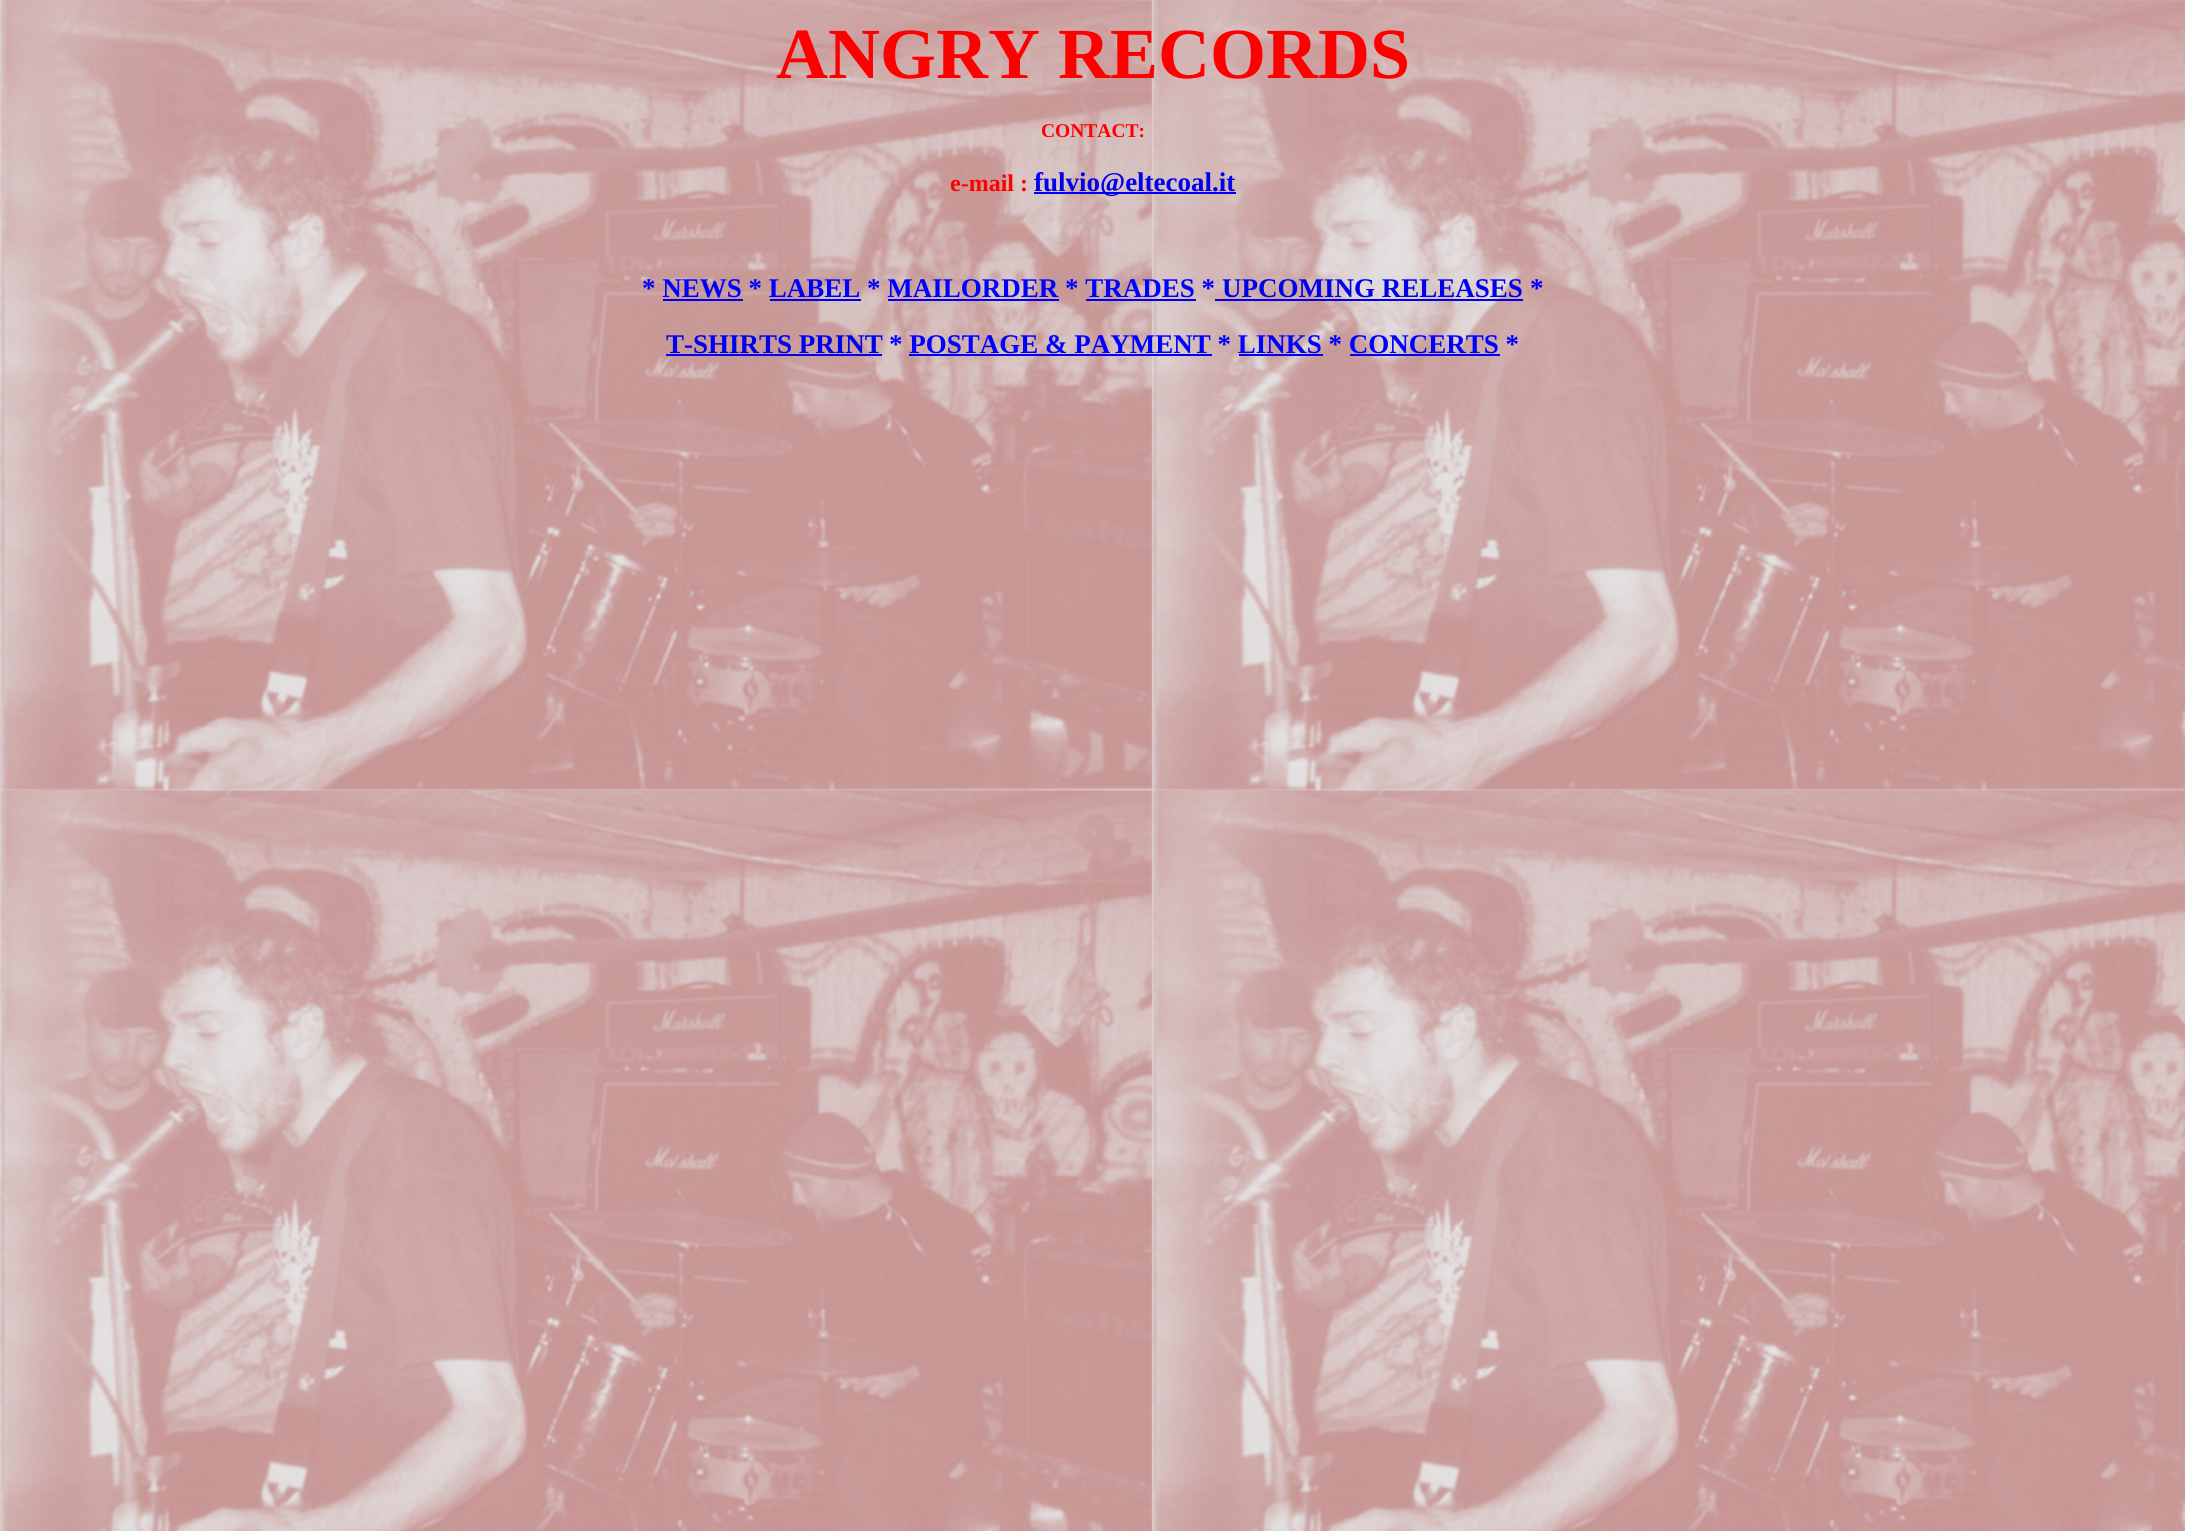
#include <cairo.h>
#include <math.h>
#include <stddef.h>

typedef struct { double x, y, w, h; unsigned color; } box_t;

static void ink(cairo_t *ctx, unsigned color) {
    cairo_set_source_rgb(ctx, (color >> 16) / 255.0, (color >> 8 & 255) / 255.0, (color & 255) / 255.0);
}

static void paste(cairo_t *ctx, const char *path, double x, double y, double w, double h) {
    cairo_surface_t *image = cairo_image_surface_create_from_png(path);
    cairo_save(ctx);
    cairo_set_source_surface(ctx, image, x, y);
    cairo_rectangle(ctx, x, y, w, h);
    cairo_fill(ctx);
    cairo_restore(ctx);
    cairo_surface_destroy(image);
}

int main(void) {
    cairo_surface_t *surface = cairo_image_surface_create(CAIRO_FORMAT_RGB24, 2185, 1531);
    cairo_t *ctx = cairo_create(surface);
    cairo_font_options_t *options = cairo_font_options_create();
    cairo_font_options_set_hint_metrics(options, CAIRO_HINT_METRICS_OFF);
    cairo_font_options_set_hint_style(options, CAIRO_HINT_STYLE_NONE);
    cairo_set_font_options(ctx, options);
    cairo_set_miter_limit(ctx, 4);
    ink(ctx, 0xFFFFFF);
    cairo_paint(ctx);
    paste(ctx, "media/1.png", 0, 0, 2185, 1531);
    cairo_select_font_face(ctx, "Liberation Serif", CAIRO_FONT_SLANT_NORMAL, CAIRO_FONT_WEIGHT_BOLD);
    cairo_set_font_size(ctx, 72);
    ink(ctx, 0xFF0000);
    cairo_move_to(ctx, 776, 78);
    cairo_show_text(ctx, "ANGRY RECORDS");
    cairo_set_font_size(ctx, 19.5);
    cairo_move_to(ctx, 1041, 137);
    cairo_show_text(ctx, "CONTACT:");
    cairo_set_font_size(ctx, 24);
    cairo_move_to(ctx, 950, 191);
    cairo_show_text(ctx, "e-mail :");
    ink(ctx, 0x0000EE);
    cairo_rectangle(ctx, 1034, 192, 202, 2);
    cairo_fill(ctx);
    cairo_set_font_size(ctx, 27);
    cairo_move_to(ctx, 1034, 191);
    cairo_show_text(ctx, "fulvio@eltecoal.it");
    ink(ctx, 0x0000FF);
    cairo_move_to(ctx, 642, 297);
    cairo_show_text(ctx, "* NEWS * LABEL * MAILORDER * TRADES *");
    ink(ctx, 0x0000EE);
    cairo_move_to(ctx, 1222, 297);
    cairo_show_text(ctx, "UPCOMING RELEASES");
    cairo_rectangle(ctx, 1215, 299, 308, 2);
    cairo_fill(ctx);
    ink(ctx, 0x0000FF);
    cairo_move_to(ctx, 1530, 297);
    cairo_show_text(ctx, "*");
    {
        static const box_t items[] = {
            {663, 299, 80, 2, 0x0000EE},
            {770, 299, 91, 2, 0x0000EE},
            {888, 299, 171, 2, 0x0000EE},
            {1086, 299, 110, 2, 0x0000EE},
        };
        for (size_t i = 0; i < sizeof items / sizeof *items; i++) {
            ink(ctx, items[i].color);
            cairo_rectangle(ctx, items[i].x, items[i].y, items[i].w, items[i].h);
            cairo_fill(ctx);
        }
    }
    cairo_move_to(ctx, 666, 353);
    cairo_show_text(ctx, "T-SHIRTS PRINT");
    cairo_rectangle(ctx, 666, 354, 216, 2);
    cairo_fill(ctx);
    ink(ctx, 0x0000FF);
    cairo_move_to(ctx, 889, 353);
    cairo_show_text(ctx, "* POSTAGE & PAYMENT * LINKS * CONCERTS *");
    {
        static const box_t items[] = {
            {909, 354, 303, 2, 0x0000EE},
            {1239, 354, 84, 2, 0x0000EE},
            {1350, 354, 150, 2, 0x0000EE},
        };
        for (size_t i = 0; i < sizeof items / sizeof *items; i++) {
            ink(ctx, items[i].color);
            cairo_rectangle(ctx, items[i].x, items[i].y, items[i].w, items[i].h);
            cairo_fill(ctx);
        }
    }
    cairo_surface_write_to_png(surface, "image.png");
    cairo_font_options_destroy(options);
    cairo_destroy(ctx);
    cairo_surface_destroy(surface);
    return 0;
}
